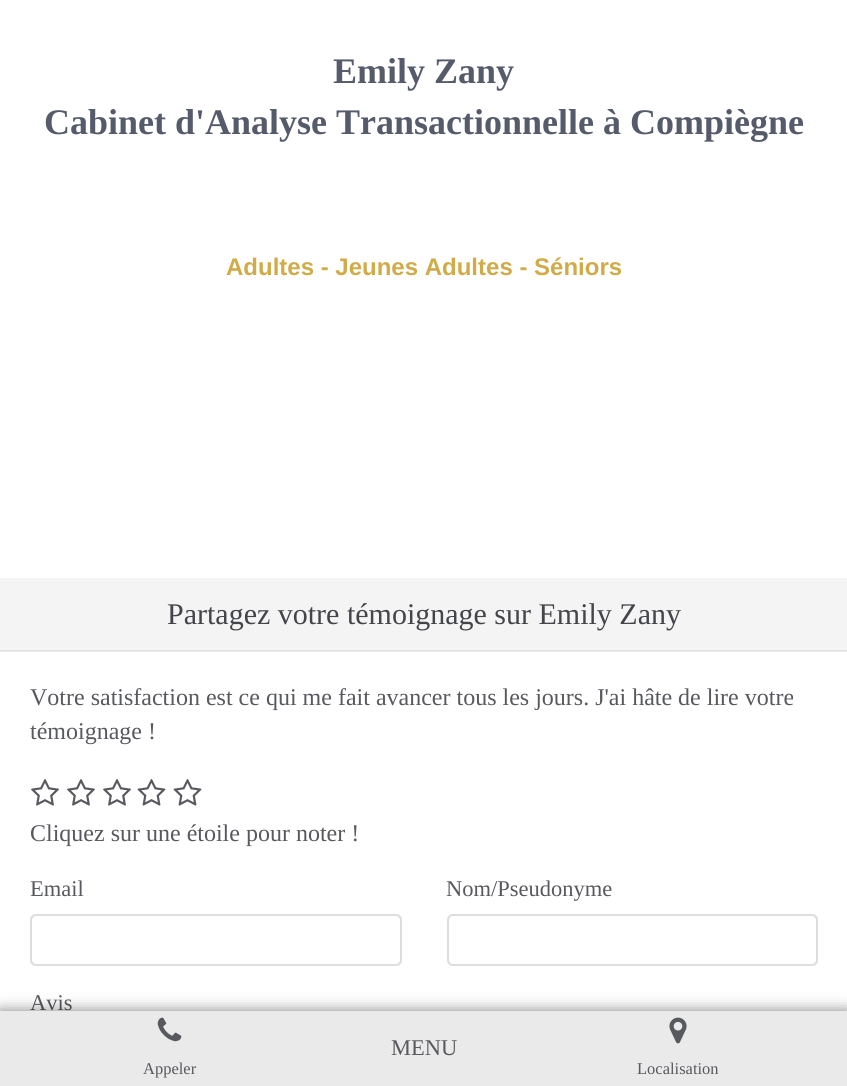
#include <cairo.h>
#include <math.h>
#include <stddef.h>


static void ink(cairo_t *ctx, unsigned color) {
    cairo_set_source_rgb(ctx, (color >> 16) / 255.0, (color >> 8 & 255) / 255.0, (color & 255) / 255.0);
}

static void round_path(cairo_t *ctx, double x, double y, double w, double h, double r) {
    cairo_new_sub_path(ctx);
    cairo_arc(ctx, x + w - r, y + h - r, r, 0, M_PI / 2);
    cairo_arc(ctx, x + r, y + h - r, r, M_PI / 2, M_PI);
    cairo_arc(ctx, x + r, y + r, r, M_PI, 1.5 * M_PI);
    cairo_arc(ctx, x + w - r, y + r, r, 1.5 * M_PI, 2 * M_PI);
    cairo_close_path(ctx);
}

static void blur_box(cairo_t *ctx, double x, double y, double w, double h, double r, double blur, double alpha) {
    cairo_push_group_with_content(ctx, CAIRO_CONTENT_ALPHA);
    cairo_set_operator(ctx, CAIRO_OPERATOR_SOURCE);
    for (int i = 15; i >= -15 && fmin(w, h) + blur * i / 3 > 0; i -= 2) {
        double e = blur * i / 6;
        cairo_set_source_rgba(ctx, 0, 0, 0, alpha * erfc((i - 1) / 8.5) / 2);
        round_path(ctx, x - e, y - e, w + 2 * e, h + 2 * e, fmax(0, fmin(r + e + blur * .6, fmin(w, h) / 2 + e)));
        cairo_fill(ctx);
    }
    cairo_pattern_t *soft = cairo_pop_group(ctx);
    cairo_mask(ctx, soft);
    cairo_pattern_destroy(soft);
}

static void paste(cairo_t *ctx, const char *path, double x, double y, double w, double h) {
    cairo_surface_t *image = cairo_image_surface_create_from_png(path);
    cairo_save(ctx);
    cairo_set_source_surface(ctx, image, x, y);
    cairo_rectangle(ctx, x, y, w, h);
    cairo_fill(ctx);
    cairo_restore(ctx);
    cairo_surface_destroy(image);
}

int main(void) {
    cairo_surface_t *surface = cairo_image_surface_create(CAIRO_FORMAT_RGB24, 847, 1086);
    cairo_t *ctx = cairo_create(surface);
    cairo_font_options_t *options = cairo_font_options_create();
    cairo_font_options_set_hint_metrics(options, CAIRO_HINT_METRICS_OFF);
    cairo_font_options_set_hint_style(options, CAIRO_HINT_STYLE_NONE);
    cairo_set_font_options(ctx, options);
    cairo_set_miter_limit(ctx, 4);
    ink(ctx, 0xFFFFFF);
    cairo_paint(ctx);
    ink(ctx, 0xE9E9E9);
    cairo_rectangle(ctx, 0, 651, 847, 1);
    cairo_fill(ctx);
    cairo_select_font_face(ctx, "Liberation Serif", CAIRO_FONT_SLANT_NORMAL, CAIRO_FONT_WEIGHT_BOLD);
    cairo_set_font_size(ctx, 36);
    ink(ctx, 0x555B6B);
    cairo_move_to(ctx, 333, 83);
    cairo_show_text(ctx, "Emily Zany");
    cairo_move_to(ctx, 44, 134);
    cairo_show_text(ctx, "Cabinet d'Analyse Transactionnelle à Compiègne");
    cairo_select_font_face(ctx, "Liberation Sans", CAIRO_FONT_SLANT_NORMAL, CAIRO_FONT_WEIGHT_BOLD);
    cairo_set_font_size(ctx, 24);
    ink(ctx, 0xD1AB48);
    cairo_move_to(ctx, 226, 275);
    cairo_show_text(ctx, "Adultes - Jeunes Adultes - Séniors");
    ink(ctx, 0xF4F4F4);
    cairo_rectangle(ctx, 0, 578, 847, 72);
    cairo_fill(ctx);
    ink(ctx, 0xE2E2E2);
    cairo_rectangle(ctx, 0, 650, 847, 1);
    cairo_fill(ctx);
    cairo_select_font_face(ctx, "Liberation Serif", CAIRO_FONT_SLANT_NORMAL, CAIRO_FONT_WEIGHT_NORMAL);
    cairo_set_font_size(ctx, 30);
    ink(ctx, 0x44454A);
    cairo_move_to(ctx, 167, 624);
    cairo_show_text(ctx, "Partagez votre témoignage sur Emily Zany");
    cairo_set_font_size(ctx, 24);
    ink(ctx, 0x58595E);
    cairo_move_to(ctx, 30, 705);
    cairo_show_text(ctx, "Votre satisfaction est ce qui me fait avancer tous les jours. J'ai hâte de lire votre");
    cairo_move_to(ctx, 30, 739);
    cairo_show_text(ctx, "témoignage !");
    paste(ctx, "media/1.png", 31, 779, 28, 27);
    paste(ctx, "media/1.png", 67, 779, 28, 27);
    paste(ctx, "media/1.png", 103, 779, 28, 27);
    paste(ctx, "media/2.png", 137, 779, 29, 27);
    paste(ctx, "media/2.png", 173, 779, 29, 27);
    cairo_move_to(ctx, 30, 841);
    cairo_show_text(ctx, "Cliquez sur une étoile pour noter !");
    cairo_set_font_size(ctx, 22.5);
    cairo_move_to(ctx, 30, 896);
    cairo_show_text(ctx, "Email");
    round_path(ctx, 31, 915, 370, 50, 5);
    ink(ctx, 0xDDDDDD);
    cairo_stroke(ctx);
    ink(ctx, 0x58595E);
    cairo_move_to(ctx, 446, 896);
    cairo_show_text(ctx, "Nom/Pseudonyme");
    round_path(ctx, 448, 915, 369, 50, 5);
    ink(ctx, 0xDDDDDD);
    cairo_stroke(ctx);
    ink(ctx, 0x58595E);
    cairo_move_to(ctx, 30, 1010);
    cairo_show_text(ctx, "Avis");
    ink(ctx, 0x000000);
    blur_box(ctx, 0, 1011, 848, 75, 0, 7.5, 0.5);
    ink(ctx, 0xEAEAEA);
    cairo_rectangle(ctx, 0, 1011, 847, 75);
    cairo_fill(ctx);
    ink(ctx, 0x58595E);
    cairo_move_to(ctx, 391, 1055);
    cairo_show_text(ctx, "MENU");
    paste(ctx, "media/3.png", 157, 1017, 25, 25);
    cairo_set_font_size(ctx, 16.5);
    cairo_move_to(ctx, 143, 1074);
    cairo_show_text(ctx, "Appeler");
    paste(ctx, "media/4.png", 669, 1017, 18, 27);
    cairo_move_to(ctx, 637, 1074);
    cairo_show_text(ctx, "Localisation");
    cairo_surface_write_to_png(surface, "image.png");
    cairo_font_options_destroy(options);
    cairo_destroy(ctx);
    cairo_surface_destroy(surface);
    return 0;
}
